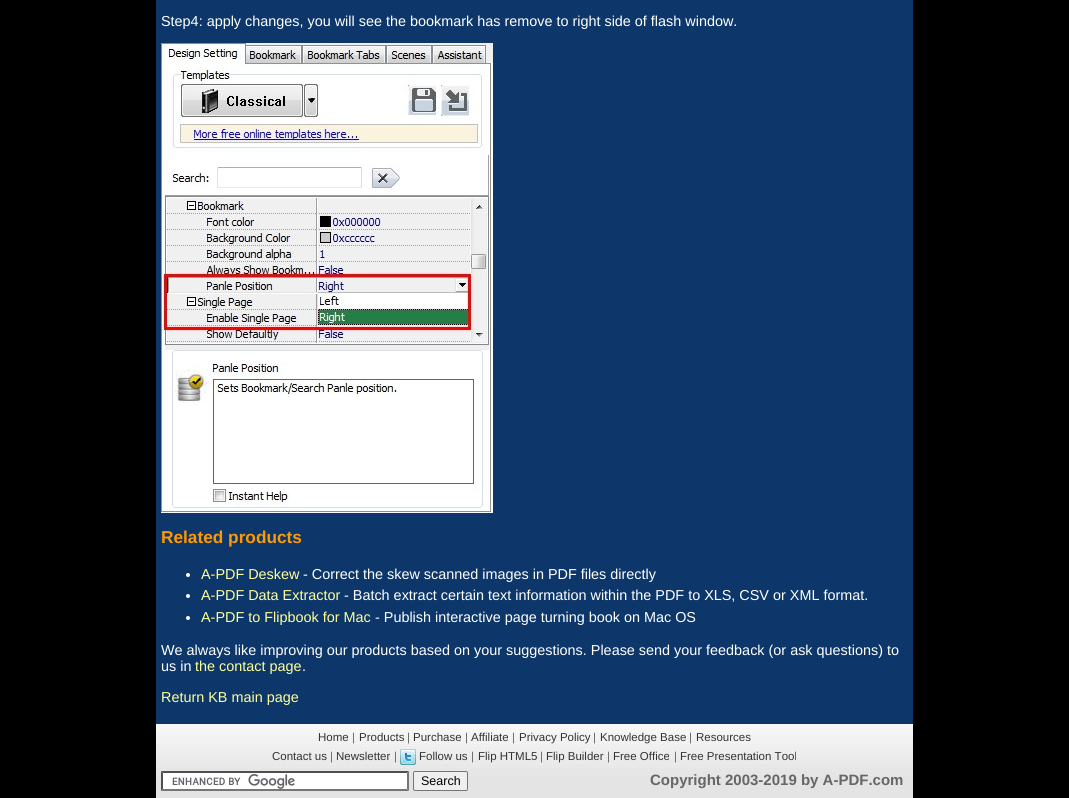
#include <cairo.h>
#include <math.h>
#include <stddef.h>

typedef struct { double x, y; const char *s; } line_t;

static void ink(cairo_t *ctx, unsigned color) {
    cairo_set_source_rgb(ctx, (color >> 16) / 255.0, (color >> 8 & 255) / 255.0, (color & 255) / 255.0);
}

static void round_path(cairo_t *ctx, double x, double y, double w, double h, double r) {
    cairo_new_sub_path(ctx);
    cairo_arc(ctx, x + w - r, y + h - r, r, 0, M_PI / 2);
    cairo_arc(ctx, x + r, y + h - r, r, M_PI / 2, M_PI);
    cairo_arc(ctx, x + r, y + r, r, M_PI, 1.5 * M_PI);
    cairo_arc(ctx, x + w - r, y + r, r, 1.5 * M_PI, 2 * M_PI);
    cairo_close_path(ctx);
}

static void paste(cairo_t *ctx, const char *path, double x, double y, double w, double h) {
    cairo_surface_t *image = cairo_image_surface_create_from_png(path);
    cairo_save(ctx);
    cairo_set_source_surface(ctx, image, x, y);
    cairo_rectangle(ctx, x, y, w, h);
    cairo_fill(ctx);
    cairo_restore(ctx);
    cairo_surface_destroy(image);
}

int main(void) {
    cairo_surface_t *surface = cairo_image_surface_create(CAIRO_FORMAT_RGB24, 1069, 798);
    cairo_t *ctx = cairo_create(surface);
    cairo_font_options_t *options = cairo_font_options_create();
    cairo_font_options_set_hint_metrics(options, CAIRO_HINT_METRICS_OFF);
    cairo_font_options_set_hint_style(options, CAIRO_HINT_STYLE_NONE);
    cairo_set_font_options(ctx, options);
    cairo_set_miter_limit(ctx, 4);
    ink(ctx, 0x000000);
    cairo_paint(ctx);
    ink(ctx, 0x0D376A);
    cairo_rectangle(ctx, 156, 0, 757, 724);
    cairo_fill(ctx);
    cairo_select_font_face(ctx, "Liberation Sans", CAIRO_FONT_SLANT_NORMAL, CAIRO_FONT_WEIGHT_NORMAL);
    cairo_set_font_size(ctx, 14.4);
    ink(ctx, 0xFFFFFF);
    cairo_move_to(ctx, 161, 26);
    cairo_show_text(ctx, "Step4: apply changes, you will see the bookmark has remove to right side of flash window.");
    paste(ctx, "media/1.png", 161, 43, 332, 470);
    cairo_select_font_face(ctx, "Liberation Sans", CAIRO_FONT_SLANT_NORMAL, CAIRO_FONT_WEIGHT_BOLD);
    cairo_set_font_size(ctx, 17.25);
    ink(ctx, 0xFF9900);
    cairo_move_to(ctx, 161, 543);
    cairo_show_text(ctx, "Related products");
    ink(ctx, 0xFFFFFF);
    cairo_new_path(ctx);
    cairo_arc(ctx, 188, 575, 2, 0, 2 * M_PI);
    cairo_fill(ctx);
    cairo_select_font_face(ctx, "Liberation Sans", CAIRO_FONT_SLANT_NORMAL, CAIRO_FONT_WEIGHT_NORMAL);
    cairo_set_font_size(ctx, 14.4);
    ink(ctx, 0xFFFF99);
    cairo_move_to(ctx, 201, 579);
    cairo_show_text(ctx, "A-PDF Deskew");
    ink(ctx, 0xFFFFFF);
    cairo_move_to(ctx, 303, 579);
    cairo_show_text(ctx, "- Correct the skew scanned images in PDF files directly");
    cairo_new_path(ctx);
    cairo_arc(ctx, 188, 596, 2, 0, 2 * M_PI);
    cairo_fill(ctx);
    ink(ctx, 0xFFFF99);
    cairo_move_to(ctx, 201, 600);
    cairo_show_text(ctx, "A-PDF Data Extractor");
    ink(ctx, 0xFFFFFF);
    cairo_move_to(ctx, 344, 600);
    cairo_show_text(ctx, "- Batch extract certain text information within the PDF to XLS, CSV or XML format.");
    cairo_new_path(ctx);
    cairo_arc(ctx, 188, 618, 2, 0, 2 * M_PI);
    cairo_fill(ctx);
    ink(ctx, 0xFFFF99);
    cairo_move_to(ctx, 201, 622);
    cairo_show_text(ctx, "A-PDF to Flipbook for Mac");
    ink(ctx, 0xFFFFFF);
    {
        static const line_t items[] = {
            {375, 622, "- Publish interactive page turning book on Mac OS"},
            {161, 655, "We always like improving our products based on your suggestions. Please send your feedback (or ask questions) to"},
            {161, 671, "us in"},
        };
        for (size_t i = 0; i < sizeof items / sizeof *items; i++) {
            cairo_move_to(ctx, items[i].x, items[i].y);
            cairo_show_text(ctx, items[i].s);
        }
    }
    ink(ctx, 0xFFFF99);
    cairo_move_to(ctx, 195, 671);
    cairo_show_text(ctx, "the contact page");
    ink(ctx, 0xFFFFFF);
    cairo_move_to(ctx, 302, 671);
    cairo_show_text(ctx, ".");
    ink(ctx, 0xFFFF99);
    cairo_move_to(ctx, 161, 702);
    cairo_show_text(ctx, "Return KB main page");
    paste(ctx, "media/2.png", 156, 724, 757, 74);
    cairo_set_font_size(ctx, 11.5);
    ink(ctx, 0x333333);
    cairo_move_to(ctx, 318, 741);
    cairo_show_text(ctx, "Home");
    ink(ctx, 0x666666);
    cairo_move_to(ctx, 352, 741);
    cairo_show_text(ctx, "|");
    ink(ctx, 0x333333);
    cairo_move_to(ctx, 359, 741);
    cairo_show_text(ctx, "Products");
    ink(ctx, 0x666666);
    cairo_move_to(ctx, 407, 741);
    cairo_show_text(ctx, "|");
    ink(ctx, 0x333333);
    cairo_move_to(ctx, 413, 741);
    cairo_show_text(ctx, "Purchase");
    ink(ctx, 0x666666);
    cairo_move_to(ctx, 465, 741);
    cairo_show_text(ctx, "|");
    ink(ctx, 0x333333);
    cairo_move_to(ctx, 471, 741);
    cairo_show_text(ctx, "Affiliate");
    ink(ctx, 0x666666);
    cairo_move_to(ctx, 512, 741);
    cairo_show_text(ctx, "|");
    ink(ctx, 0x333333);
    cairo_move_to(ctx, 519, 741);
    cairo_show_text(ctx, "Privacy Policy");
    ink(ctx, 0x666666);
    cairo_move_to(ctx, 593, 741);
    cairo_show_text(ctx, "|");
    ink(ctx, 0x333333);
    cairo_move_to(ctx, 600, 741);
    cairo_show_text(ctx, "Knowledge Base");
    ink(ctx, 0x666666);
    cairo_move_to(ctx, 689, 741);
    cairo_show_text(ctx, "|");
    ink(ctx, 0x333333);
    cairo_move_to(ctx, 696, 741);
    cairo_show_text(ctx, "Resources");
    cairo_move_to(ctx, 272, 760);
    cairo_show_text(ctx, "Contact us");
    ink(ctx, 0x666666);
    cairo_move_to(ctx, 330, 760);
    cairo_show_text(ctx, "|");
    ink(ctx, 0x333333);
    cairo_move_to(ctx, 336, 760);
    cairo_show_text(ctx, "Newsletter");
    ink(ctx, 0x666666);
    cairo_move_to(ctx, 394, 760);
    cairo_show_text(ctx, "|");
    paste(ctx, "media/3.png", 400, 749, 16, 16);
    ink(ctx, 0x333333);
    cairo_move_to(ctx, 419, 760);
    cairo_show_text(ctx, "Follow us");
    ink(ctx, 0x666666);
    cairo_move_to(ctx, 471, 760);
    cairo_show_text(ctx, "|");
    ink(ctx, 0x333333);
    cairo_move_to(ctx, 478, 760);
    cairo_show_text(ctx, "Flip HTML5");
    ink(ctx, 0x666666);
    cairo_move_to(ctx, 540, 760);
    cairo_show_text(ctx, "|");
    ink(ctx, 0x333333);
    cairo_move_to(ctx, 546, 760);
    cairo_show_text(ctx, "Flip Builder");
    ink(ctx, 0x666666);
    cairo_move_to(ctx, 607, 760);
    cairo_show_text(ctx, "|");
    ink(ctx, 0x333333);
    cairo_move_to(ctx, 613, 760);
    cairo_show_text(ctx, "Free Office");
    ink(ctx, 0x666666);
    cairo_move_to(ctx, 674, 760);
    cairo_show_text(ctx, "|");
    ink(ctx, 0x333333);
    cairo_move_to(ctx, 680, 760);
    cairo_show_text(ctx, "Free Presentation Tool");
    ink(ctx, 0xFFFFFF);
    cairo_rectangle(ctx, 161, 771, 248, 20);
    cairo_fill(ctx);
    paste(ctx, "media/4.png", 172, 774, 123, 15);
    ink(ctx, 0x4F4F4F);
    cairo_new_path(ctx);
    cairo_move_to(ctx, 161, 771);
    cairo_line_to(ctx, 409, 771);
    cairo_line_to(ctx, 407, 773);
    cairo_line_to(ctx, 163, 773);
    cairo_close_path(ctx);
    cairo_fill(ctx);
    ink(ctx, 0x767676);
    cairo_new_path(ctx);
    cairo_move_to(ctx, 409, 771);
    cairo_line_to(ctx, 409, 791);
    cairo_line_to(ctx, 407, 789);
    cairo_line_to(ctx, 407, 773);
    cairo_close_path(ctx);
    cairo_fill(ctx);
    cairo_new_path(ctx);
    cairo_move_to(ctx, 409, 791);
    cairo_line_to(ctx, 161, 791);
    cairo_line_to(ctx, 163, 789);
    cairo_line_to(ctx, 407, 789);
    cairo_close_path(ctx);
    cairo_fill(ctx);
    ink(ctx, 0x4F4F4F);
    cairo_new_path(ctx);
    cairo_move_to(ctx, 161, 791);
    cairo_line_to(ctx, 161, 771);
    cairo_line_to(ctx, 163, 773);
    cairo_line_to(ctx, 163, 789);
    cairo_close_path(ctx);
    cairo_fill(ctx);
    ink(ctx, 0xEFEFEF);
    round_path(ctx, 413.5, 771.5, 54, 19, 1.5);
    cairo_fill_preserve(ctx);
    ink(ctx, 0x767676);
    cairo_set_line_width(ctx, 1);
    cairo_stroke(ctx);
    cairo_set_font_size(ctx, 12.5);
    ink(ctx, 0x000000);
    cairo_move_to(ctx, 421, 785);
    cairo_show_text(ctx, "Search");
    cairo_select_font_face(ctx, "Liberation Sans", CAIRO_FONT_SLANT_NORMAL, CAIRO_FONT_WEIGHT_BOLD);
    cairo_set_font_size(ctx, 15);
    ink(ctx, 0x666666);
    cairo_move_to(ctx, 650, 785);
    cairo_show_text(ctx, "Copyright 2003-2019 by A-PDF.com");
    cairo_surface_write_to_png(surface, "image.png");
    cairo_font_options_destroy(options);
    cairo_destroy(ctx);
    cairo_surface_destroy(surface);
    return 0;
}
